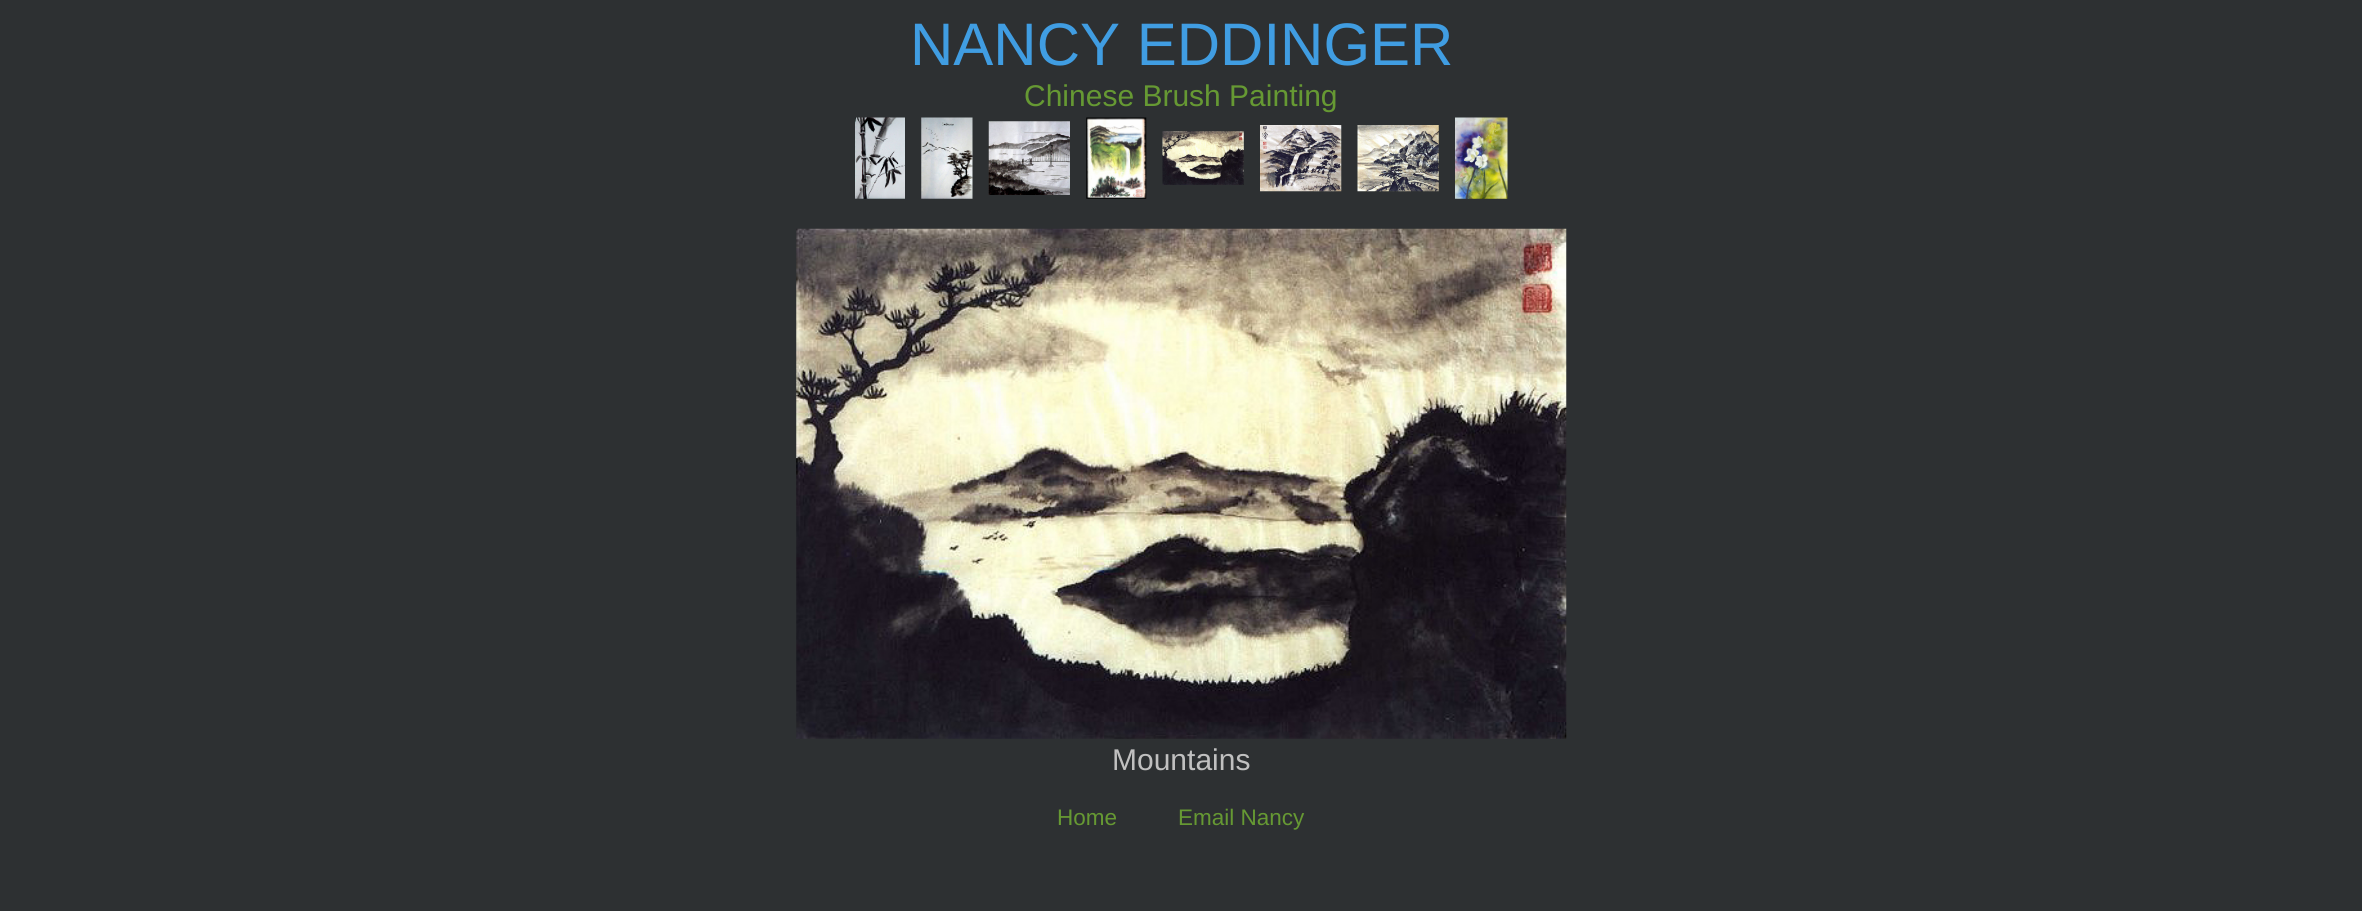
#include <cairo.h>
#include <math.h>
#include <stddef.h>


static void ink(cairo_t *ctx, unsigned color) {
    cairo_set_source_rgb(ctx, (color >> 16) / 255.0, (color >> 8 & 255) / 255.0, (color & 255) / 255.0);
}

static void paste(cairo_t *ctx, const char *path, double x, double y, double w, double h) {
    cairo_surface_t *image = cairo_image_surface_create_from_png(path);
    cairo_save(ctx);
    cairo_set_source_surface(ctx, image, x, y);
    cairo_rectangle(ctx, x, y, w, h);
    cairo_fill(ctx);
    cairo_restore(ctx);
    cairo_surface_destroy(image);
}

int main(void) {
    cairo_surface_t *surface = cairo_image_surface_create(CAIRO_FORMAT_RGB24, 2362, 911);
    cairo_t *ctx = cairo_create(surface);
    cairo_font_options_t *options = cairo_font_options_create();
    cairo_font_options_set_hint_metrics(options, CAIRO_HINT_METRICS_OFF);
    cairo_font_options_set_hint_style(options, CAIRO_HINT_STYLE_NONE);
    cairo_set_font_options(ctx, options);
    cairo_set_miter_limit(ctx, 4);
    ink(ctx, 0x2D3032);
    cairo_paint(ctx);
    cairo_select_font_face(ctx, "Liberation Sans", CAIRO_FONT_SLANT_NORMAL, CAIRO_FONT_WEIGHT_NORMAL);
    cairo_set_font_size(ctx, 60);
    ink(ctx, 0x409DE2);
    cairo_move_to(ctx, 910, 65);
    cairo_show_text(ctx, "NANCY EDDINGER");
    cairo_set_font_size(ctx, 30);
    ink(ctx, 0x669933);
    cairo_move_to(ctx, 1024, 106);
    cairo_show_text(ctx, "Chinese Brush Painting");
    paste(ctx, "media/1.png", 855, 117, 50, 82);
    paste(ctx, "media/2.png", 921, 117, 52, 82);
    paste(ctx, "media/3.png", 988, 121, 82, 74);
    paste(ctx, "media/4.png", 1086, 117, 61, 82);
    paste(ctx, "media/5.png", 1162, 131, 82, 54);
    paste(ctx, "media/6.png", 1260, 125, 82, 67);
    paste(ctx, "media/7.png", 1357, 125, 82, 67);
    paste(ctx, "media/8.png", 1455, 117, 53, 82);
    paste(ctx, "media/9.png", 796, 228, 771, 511);
    ink(ctx, 0xC0C0C0);
    cairo_move_to(ctx, 1112, 770);
    cairo_show_text(ctx, "Mountains");
    cairo_set_font_size(ctx, 22.5);
    ink(ctx, 0x669933);
    cairo_move_to(ctx, 1057, 825);
    cairo_show_text(ctx, "Home");
    cairo_move_to(ctx, 1178, 825);
    cairo_show_text(ctx, "Email Nancy");
    cairo_surface_write_to_png(surface, "image.png");
    cairo_font_options_destroy(options);
    cairo_destroy(ctx);
    cairo_surface_destroy(surface);
    return 0;
}
